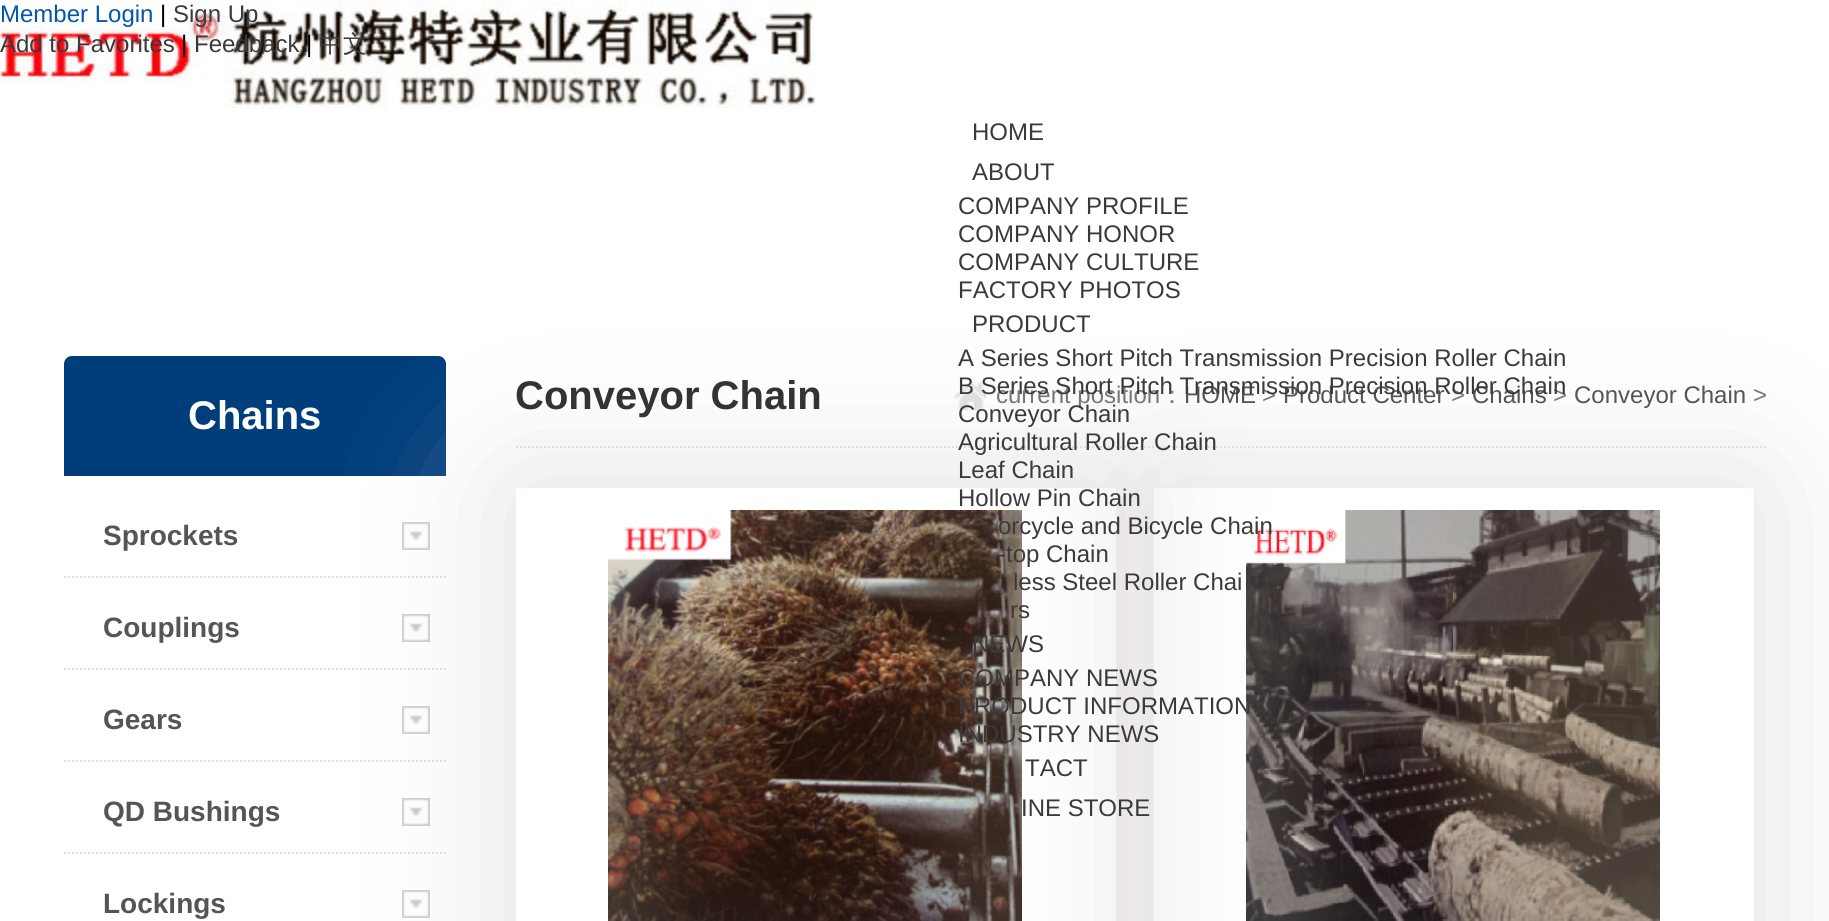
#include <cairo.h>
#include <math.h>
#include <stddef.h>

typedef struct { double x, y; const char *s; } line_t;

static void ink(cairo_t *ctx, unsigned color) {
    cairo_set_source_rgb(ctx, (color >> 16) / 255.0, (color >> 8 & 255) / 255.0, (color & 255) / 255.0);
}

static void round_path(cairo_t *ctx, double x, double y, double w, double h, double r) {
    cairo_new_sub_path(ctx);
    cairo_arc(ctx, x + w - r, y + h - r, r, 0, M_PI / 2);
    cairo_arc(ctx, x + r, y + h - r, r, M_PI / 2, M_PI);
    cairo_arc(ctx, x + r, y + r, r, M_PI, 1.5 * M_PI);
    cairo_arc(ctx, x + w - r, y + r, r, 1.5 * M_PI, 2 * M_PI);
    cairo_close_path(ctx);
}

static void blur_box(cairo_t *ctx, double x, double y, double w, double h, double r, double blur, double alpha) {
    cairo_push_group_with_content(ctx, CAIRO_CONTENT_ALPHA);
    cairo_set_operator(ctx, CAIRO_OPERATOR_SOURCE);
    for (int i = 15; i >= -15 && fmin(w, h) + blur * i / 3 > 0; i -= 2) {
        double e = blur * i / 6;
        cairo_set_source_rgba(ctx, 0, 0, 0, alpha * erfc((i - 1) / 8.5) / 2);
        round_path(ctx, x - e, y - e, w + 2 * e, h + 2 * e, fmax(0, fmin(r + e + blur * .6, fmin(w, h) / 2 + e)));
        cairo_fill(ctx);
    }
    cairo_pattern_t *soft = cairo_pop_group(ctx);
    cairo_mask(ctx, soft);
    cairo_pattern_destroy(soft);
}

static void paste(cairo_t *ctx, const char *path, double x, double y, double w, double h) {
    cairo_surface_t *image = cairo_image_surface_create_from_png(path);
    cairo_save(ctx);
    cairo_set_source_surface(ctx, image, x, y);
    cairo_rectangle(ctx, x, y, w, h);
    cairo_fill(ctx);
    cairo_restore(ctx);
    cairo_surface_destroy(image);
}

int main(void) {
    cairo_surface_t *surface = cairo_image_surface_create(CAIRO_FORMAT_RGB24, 1829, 921);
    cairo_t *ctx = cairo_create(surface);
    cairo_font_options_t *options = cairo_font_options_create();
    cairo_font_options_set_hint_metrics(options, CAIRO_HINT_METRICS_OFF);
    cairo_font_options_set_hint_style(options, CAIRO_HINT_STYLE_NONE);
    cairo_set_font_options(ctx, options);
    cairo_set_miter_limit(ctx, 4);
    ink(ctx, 0xFFFFFF);
    cairo_paint(ctx);
    paste(ctx, "media/1.png", 0, 0, 816, 108);
    cairo_select_font_face(ctx, "Liberation Sans", CAIRO_FONT_SLANT_NORMAL, CAIRO_FONT_WEIGHT_NORMAL);
    cairo_set_font_size(ctx, 24);
    ink(ctx, 0x0256AC);
    cairo_move_to(ctx, 0, 22);
    cairo_show_text(ctx, "Member Login");
    ink(ctx, 0x000000);
    cairo_move_to(ctx, 160, 22);
    cairo_show_text(ctx, "|");
    ink(ctx, 0x3A3A3A);
    cairo_move_to(ctx, 173, 22);
    cairo_show_text(ctx, "Sign Up");
    cairo_move_to(ctx, 0, 52);
    cairo_show_text(ctx, "Add to Favorites");
    ink(ctx, 0x000000);
    cairo_move_to(ctx, 181, 52);
    cairo_show_text(ctx, "|");
    ink(ctx, 0x3A3A3A);
    cairo_move_to(ctx, 194, 52);
    cairo_show_text(ctx, "Feedback");
    ink(ctx, 0x000000);
    cairo_move_to(ctx, 306, 52);
    cairo_show_text(ctx, "|");
    cairo_select_font_face(ctx, "WenQuanYi Zen Hei Medium", CAIRO_FONT_SLANT_NORMAL, CAIRO_FONT_WEIGHT_NORMAL);
    ink(ctx, 0x3A3A3A);
    cairo_move_to(ctx, 319, 52);
    cairo_show_text(ctx, "中文");
    cairo_select_font_face(ctx, "Liberation Sans", CAIRO_FONT_SLANT_NORMAL, CAIRO_FONT_WEIGHT_NORMAL);
    {
        static const line_t items[] = {
            {972, 140, "HOME"},
            {972, 180, "ABOUT"},
            {958, 214, "COMPANY PROFILE"},
            {958, 242, "COMPANY HONOR"},
            {958, 270, "COMPANY CULTURE"},
        };
        for (size_t i = 0; i < sizeof items / sizeof *items; i++) {
            cairo_move_to(ctx, items[i].x, items[i].y);
            cairo_show_text(ctx, items[i].s);
        }
    }
    ink(ctx, 0x003D7B);
    cairo_new_path(ctx);
    cairo_move_to(ctx, 72, 356);
    cairo_line_to(ctx, 438, 356);
    cairo_curve_to(ctx, 442.5, 356, 446, 359.5, 446, 364);
    cairo_line_to(ctx, 446, 476);
    cairo_line_to(ctx, 64, 476);
    cairo_line_to(ctx, 64, 364);
    cairo_curve_to(ctx, 64, 359.5, 67.5, 356, 72, 356);
    cairo_close_path(ctx);
    cairo_fill(ctx);
    cairo_save(ctx);
    cairo_set_fill_rule(ctx, CAIRO_FILL_RULE_EVEN_ODD);
    cairo_new_path(ctx);
    cairo_move_to(ctx, 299, 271);
    cairo_line_to(ctx, 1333, 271);
    cairo_line_to(ctx, 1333, 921);
    cairo_line_to(ctx, 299, 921);
    cairo_close_path(ctx);
    cairo_move_to(ctx, 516, 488);
    cairo_line_to(ctx, 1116, 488);
    cairo_line_to(ctx, 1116, 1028);
    cairo_line_to(ctx, 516, 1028);
    cairo_close_path(ctx);
    cairo_clip(ctx);
    ink(ctx, 0xE1DDDD);
    blur_box(ctx, 516, 488, 600, 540, 0, 72, 1);
    cairo_restore(ctx);
    cairo_save(ctx);
    cairo_set_fill_rule(ctx, CAIRO_FILL_RULE_EVEN_ODD);
    cairo_new_path(ctx);
    cairo_move_to(ctx, 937, 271);
    cairo_line_to(ctx, 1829, 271);
    cairo_line_to(ctx, 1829, 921);
    cairo_line_to(ctx, 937, 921);
    cairo_close_path(ctx);
    cairo_move_to(ctx, 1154, 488);
    cairo_line_to(ctx, 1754, 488);
    cairo_line_to(ctx, 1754, 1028);
    cairo_line_to(ctx, 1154, 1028);
    cairo_close_path(ctx);
    cairo_clip(ctx);
    ink(ctx, 0xE1DDDD);
    blur_box(ctx, 1154, 488, 600, 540, 0, 72, 1);
    cairo_restore(ctx);
    ink(ctx, 0x3A3A3A);
    {
        static const line_t items[] = {
            {958, 298, "FACTORY PHOTOS"},
            {972, 332, "PRODUCT"},
            {958, 366, "A Series Short Pitch Transmission Precision Roller Chain"},
        };
        for (size_t i = 0; i < sizeof items / sizeof *items; i++) {
            cairo_move_to(ctx, items[i].x, items[i].y);
            cairo_show_text(ctx, items[i].s);
        }
    }
    paste(ctx, "media/9.png", 954, 381, 32, 30);
    ink(ctx, 0x777777);
    cairo_move_to(ctx, 996, 403);
    cairo_show_text(ctx, "current position");
    ink(ctx, 0x555555);
    cairo_move_to(ctx, 1184, 403);
    cairo_show_text(ctx, "HOME");
    ink(ctx, 0x777777);
    cairo_move_to(ctx, 1262, 403);
    cairo_show_text(ctx, ">");
    ink(ctx, 0x555555);
    cairo_move_to(ctx, 1283, 403);
    cairo_show_text(ctx, "Product Center");
    ink(ctx, 0x777777);
    cairo_move_to(ctx, 1451, 403);
    cairo_show_text(ctx, ">");
    ink(ctx, 0x555555);
    cairo_move_to(ctx, 1472, 403);
    cairo_show_text(ctx, "Chains");
    ink(ctx, 0x777777);
    cairo_move_to(ctx, 1553, 403);
    cairo_show_text(ctx, ">");
    ink(ctx, 0x3A3A3A);
    cairo_move_to(ctx, 958, 394);
    cairo_show_text(ctx, "B Series Short Pitch Transmission Precision Roller Chain");
    cairo_move_to(ctx, 958, 422);
    cairo_show_text(ctx, "Conveyor Chain");
    cairo_new_path(ctx);
    cairo_move_to(ctx, 516, 447);
    cairo_line_to(ctx, 1766, 447);
    ink(ctx, 0xDEDEDE);
    cairo_set_dash(ctx, (double[]){2, 2}, 2, 0);
    cairo_stroke(ctx);
    ink(ctx, 0x3A3A3A);
    {
        static const line_t items[] = {
            {958, 450, "Agricultural Roller Chain"},
            {958, 478, "Leaf Chain"},
            {958, 506, "Hollow Pin Chain"},
        };
        for (size_t i = 0; i < sizeof items / sizeof *items; i++) {
            cairo_move_to(ctx, items[i].x, items[i].y);
            cairo_show_text(ctx, items[i].s);
        }
    }
    paste(ctx, "media/7.png", 608, 510, 414, 411);
    paste(ctx, "media/8.png", 1246, 510, 414, 411);
    {
        static const line_t items[] = {
            {998, 534, "orcycle and Bicycle Chain"},
            {998, 562, "-top Chain"},
            {1013, 590, "less Steel Roller Chai"},
            {1010, 618, "rs"},
            {972, 652, "NEWS"},
            {958, 686, "COMPANY NEWS"},
            {958, 714, "PRODUCT INFORMATION"},
            {958, 742, "INDUSTRY NEWS"},
            {1025, 776, "TACT"},
            {1021, 816, "INE STORE"},
        };
        for (size_t i = 0; i < sizeof items / sizeof *items; i++) {
            cairo_move_to(ctx, items[i].x, items[i].y);
            cairo_show_text(ctx, items[i].s);
        }
    }
    cairo_select_font_face(ctx, "Liberation Sans", CAIRO_FONT_SLANT_NORMAL, CAIRO_FONT_WEIGHT_BOLD);
    cairo_set_font_size(ctx, 40);
    ink(ctx, 0xFFFFFF);
    cairo_move_to(ctx, 188, 429);
    cairo_show_text(ctx, "Chains");
    cairo_new_path(ctx);
    cairo_move_to(ctx, 64, 577);
    cairo_line_to(ctx, 446, 577);
    ink(ctx, 0xDEDEDE);
    cairo_stroke(ctx);
    cairo_set_font_size(ctx, 28);
    ink(ctx, 0x555555);
    cairo_move_to(ctx, 103, 545);
    cairo_show_text(ctx, "Sprockets");
    paste(ctx, "media/2.png", 402, 522, 28, 28);
    cairo_new_path(ctx);
    cairo_move_to(ctx, 64, 669);
    cairo_line_to(ctx, 446, 669);
    ink(ctx, 0xDEDEDE);
    cairo_stroke(ctx);
    ink(ctx, 0x555555);
    cairo_move_to(ctx, 103, 637);
    cairo_show_text(ctx, "Couplings");
    paste(ctx, "media/3.png", 402, 614, 28, 28);
    cairo_new_path(ctx);
    cairo_move_to(ctx, 64, 761);
    cairo_line_to(ctx, 446, 761);
    ink(ctx, 0xDEDEDE);
    cairo_stroke(ctx);
    ink(ctx, 0x555555);
    cairo_move_to(ctx, 103, 729);
    cairo_show_text(ctx, "Gears");
    paste(ctx, "media/4.png", 402, 706, 28, 28);
    cairo_new_path(ctx);
    cairo_move_to(ctx, 64, 853);
    cairo_line_to(ctx, 446, 853);
    ink(ctx, 0xDEDEDE);
    cairo_stroke(ctx);
    ink(ctx, 0x555555);
    cairo_move_to(ctx, 103, 821);
    cairo_show_text(ctx, "QD Bushings");
    paste(ctx, "media/5.png", 402, 798, 28, 28);
    cairo_move_to(ctx, 103, 913);
    cairo_show_text(ctx, "Lockings");
    paste(ctx, "media/6.png", 402, 890, 28, 28);
    cairo_set_font_size(ctx, 40);
    ink(ctx, 0x333333);
    cairo_move_to(ctx, 515, 409);
    cairo_show_text(ctx, "Conveyor Chain");
    cairo_select_font_face(ctx, "WenQuanYi Zen Hei Medium", CAIRO_FONT_SLANT_NORMAL, CAIRO_FONT_WEIGHT_NORMAL);
    cairo_set_font_size(ctx, 24);
    ink(ctx, 0x777777);
    cairo_move_to(ctx, 1160, 403);
    cairo_show_text(ctx, "：");
    cairo_select_font_face(ctx, "Liberation Sans", CAIRO_FONT_SLANT_NORMAL, CAIRO_FONT_WEIGHT_NORMAL);
    ink(ctx, 0x555555);
    cairo_move_to(ctx, 1574, 403);
    cairo_show_text(ctx, "Conveyor Chain");
    ink(ctx, 0x777777);
    cairo_move_to(ctx, 1753, 403);
    cairo_show_text(ctx, ">");
    cairo_surface_write_to_png(surface, "image.png");
    cairo_font_options_destroy(options);
    cairo_destroy(ctx);
    cairo_surface_destroy(surface);
    return 0;
}
